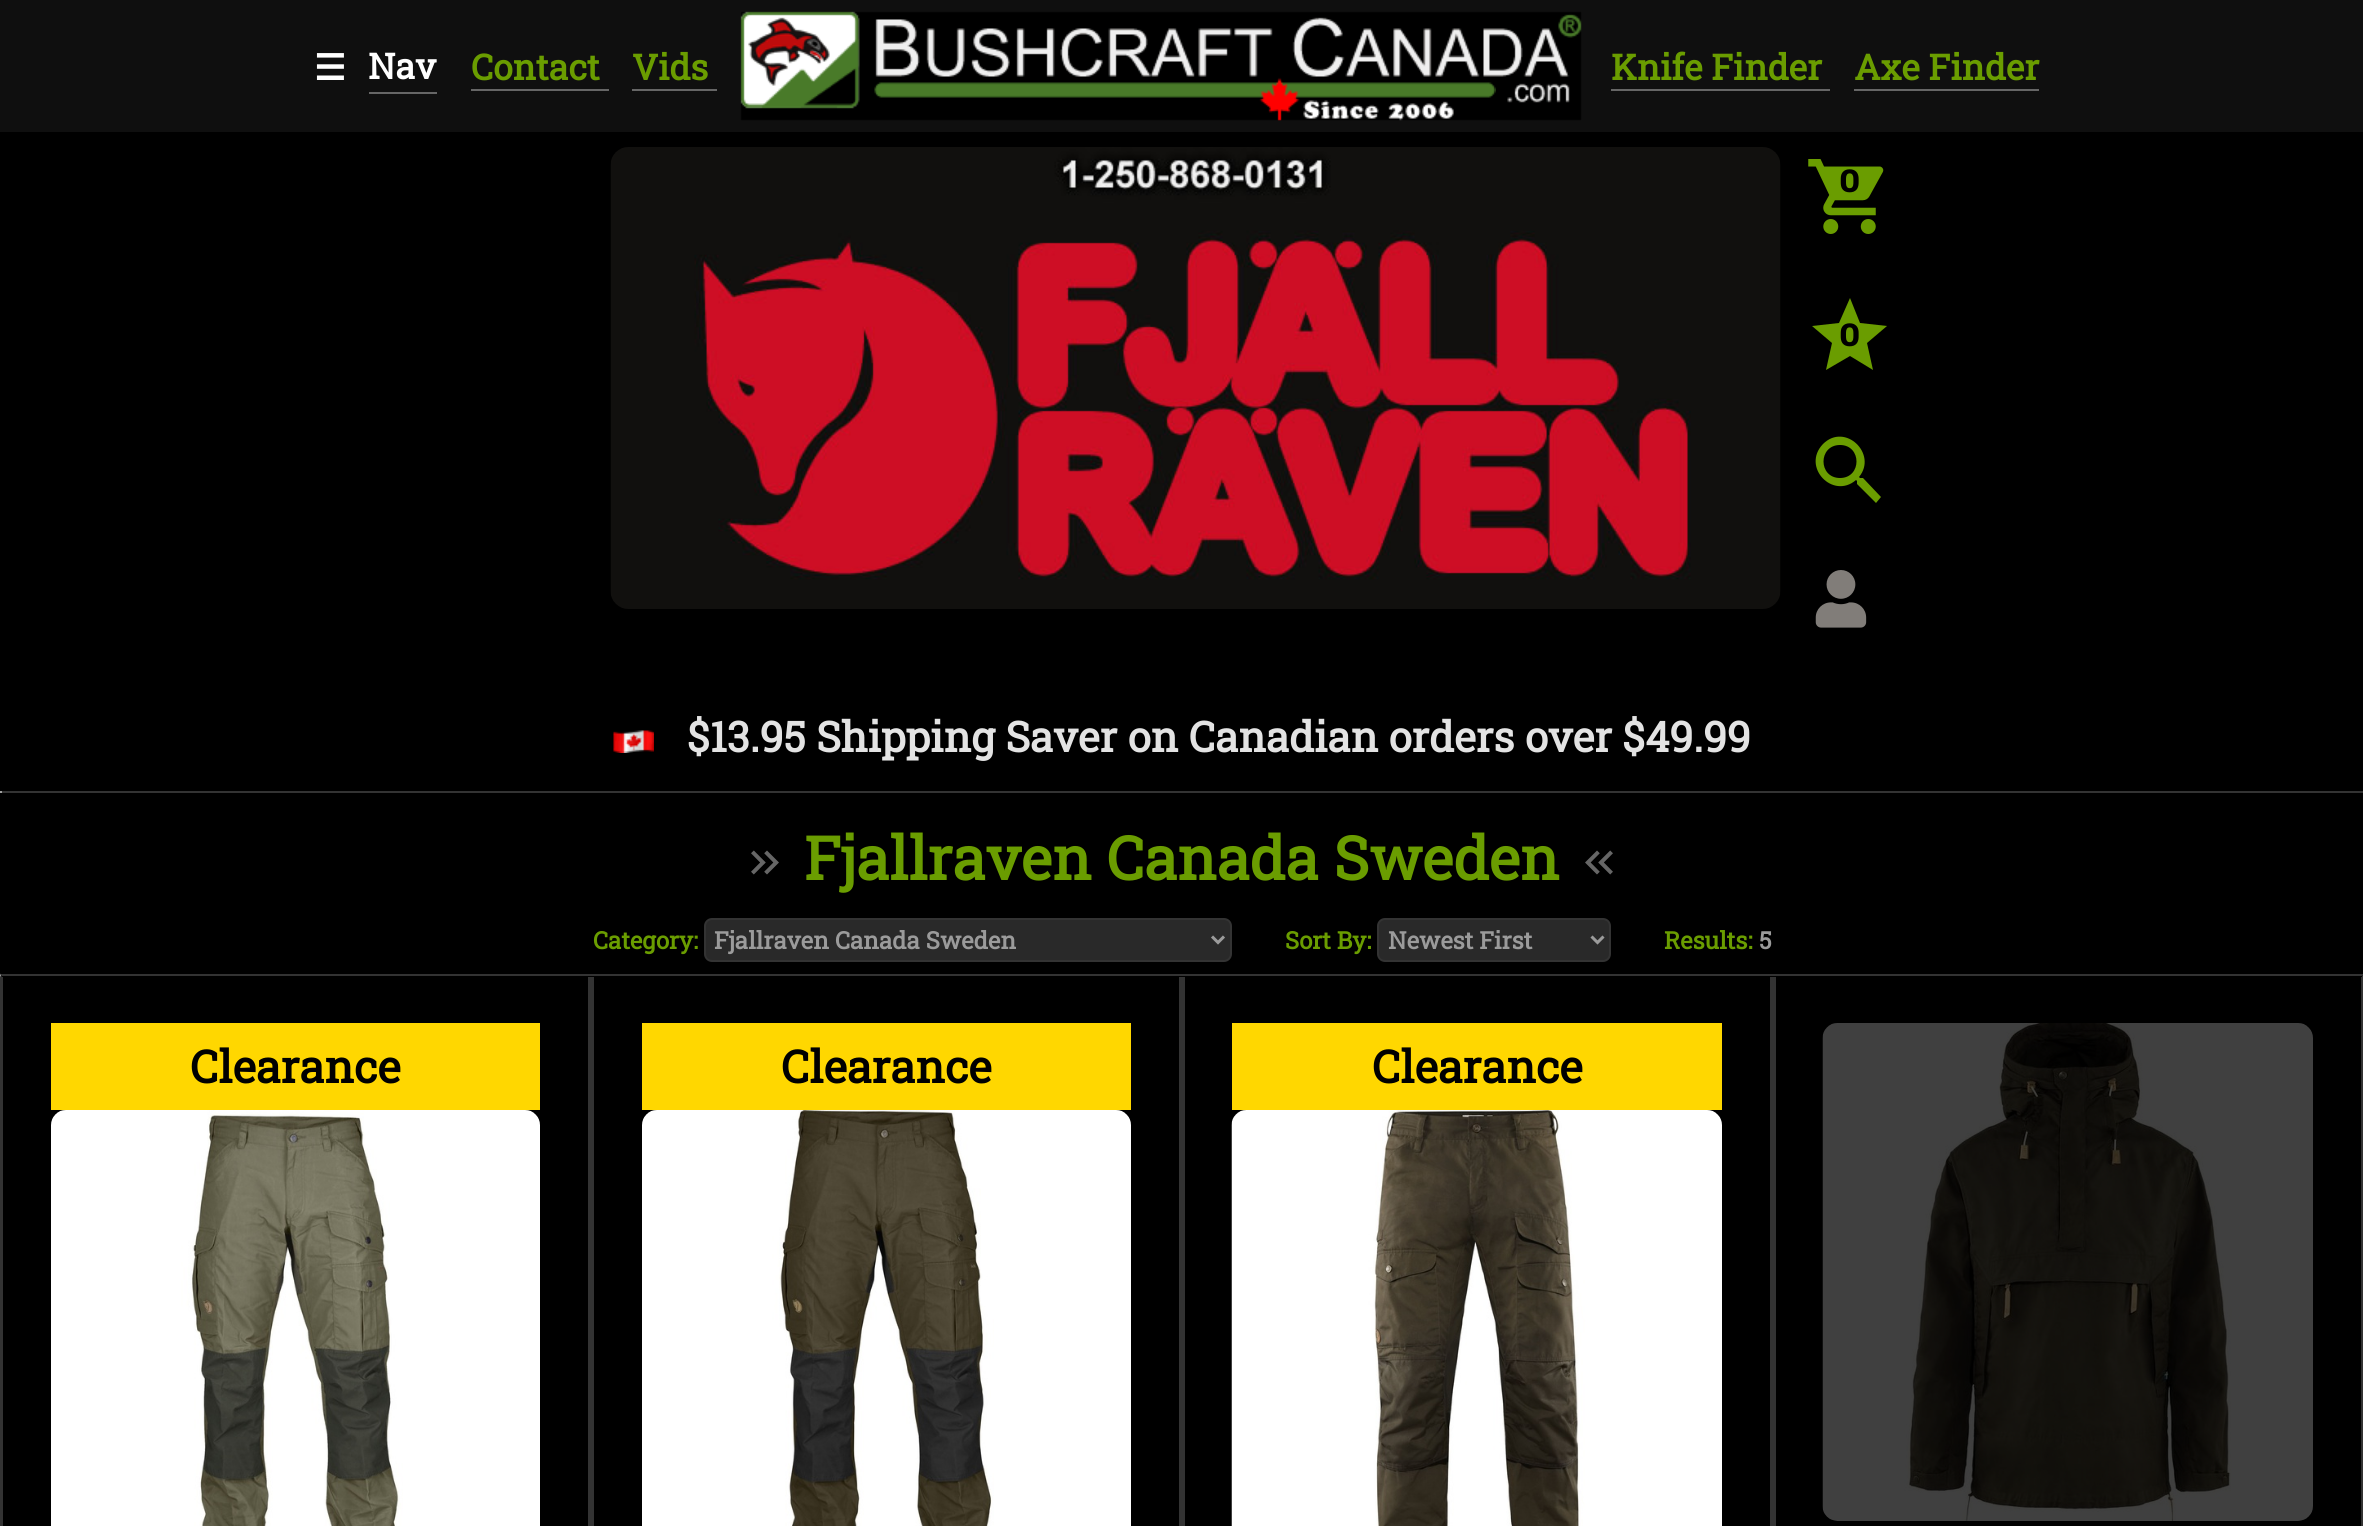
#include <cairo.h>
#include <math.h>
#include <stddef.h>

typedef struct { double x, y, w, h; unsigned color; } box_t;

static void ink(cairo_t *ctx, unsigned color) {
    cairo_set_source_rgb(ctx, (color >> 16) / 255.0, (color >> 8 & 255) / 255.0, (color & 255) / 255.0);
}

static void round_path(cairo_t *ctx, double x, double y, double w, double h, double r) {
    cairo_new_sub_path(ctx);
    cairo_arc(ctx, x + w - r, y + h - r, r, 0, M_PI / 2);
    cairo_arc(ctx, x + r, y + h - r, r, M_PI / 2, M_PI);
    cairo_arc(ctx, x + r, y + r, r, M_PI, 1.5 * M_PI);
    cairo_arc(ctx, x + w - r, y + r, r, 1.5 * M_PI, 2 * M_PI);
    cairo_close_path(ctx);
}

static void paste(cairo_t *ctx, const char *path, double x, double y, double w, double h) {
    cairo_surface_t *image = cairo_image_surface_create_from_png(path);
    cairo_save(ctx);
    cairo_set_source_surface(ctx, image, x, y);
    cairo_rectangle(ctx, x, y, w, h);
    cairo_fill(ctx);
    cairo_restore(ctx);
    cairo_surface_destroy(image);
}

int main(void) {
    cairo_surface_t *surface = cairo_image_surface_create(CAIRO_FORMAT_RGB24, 2363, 1526);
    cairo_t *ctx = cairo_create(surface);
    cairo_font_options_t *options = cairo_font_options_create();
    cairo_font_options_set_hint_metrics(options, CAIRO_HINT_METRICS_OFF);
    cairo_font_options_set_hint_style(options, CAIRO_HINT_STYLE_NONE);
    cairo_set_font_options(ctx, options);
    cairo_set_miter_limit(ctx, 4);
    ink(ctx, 0x000000);
    cairo_paint(ctx);
    ink(ctx, 0x0F0F0F);
    cairo_rectangle(ctx, 0, 0, 2363, 132);
    cairo_fill(ctx);
    cairo_select_font_face(ctx, "DejaVu Sans", CAIRO_FONT_SLANT_NORMAL, CAIRO_FONT_WEIGHT_BOLD);
    cairo_set_font_size(ctx, 35.5);
    ink(ctx, 0xFFFFFF);
    cairo_move_to(ctx, 314, 80);
    cairo_show_text(ctx, "☰");
    ink(ctx, 0x666666);
    cairo_rectangle(ctx, 369, 92, 68, 2);
    cairo_fill(ctx);
    cairo_select_font_face(ctx, "Roboto Slab", CAIRO_FONT_SLANT_NORMAL, CAIRO_FONT_WEIGHT_BOLD);
    ink(ctx, 0xFFFFFF);
    cairo_move_to(ctx, 368, 79);
    cairo_show_text(ctx, "Nav");
    ink(ctx, 0x6A9D00);
    cairo_move_to(ctx, 471, 80);
    cairo_show_text(ctx, "Contact");
    ink(ctx, 0x666666);
    cairo_rectangle(ctx, 471, 89, 138, 2);
    cairo_fill(ctx);
    ink(ctx, 0x6A9D00);
    cairo_move_to(ctx, 632, 80);
    cairo_show_text(ctx, "Vids");
    ink(ctx, 0x666666);
    cairo_rectangle(ctx, 632, 89, 85, 2);
    cairo_fill(ctx);
    paste(ctx, "media/1.png", 740, 11, 842, 110);
    ink(ctx, 0x6A9D00);
    cairo_move_to(ctx, 1611, 80);
    cairo_show_text(ctx, "Knife Finder");
    ink(ctx, 0x666666);
    cairo_rectangle(ctx, 1611, 89, 219, 2);
    cairo_fill(ctx);
    ink(ctx, 0x6A9D00);
    cairo_move_to(ctx, 1854, 80);
    cairo_show_text(ctx, "Axe Finder");
    ink(ctx, 0x666666);
    cairo_rectangle(ctx, 1854, 89, 185, 2);
    cairo_fill(ctx);
    paste(ctx, "media/2.png", 610, 147, 1171, 462);
    paste(ctx, "media/3.png", 1808, 159, 76, 75);
    cairo_select_font_face(ctx, "Rubik SemiBold", CAIRO_FONT_SLANT_NORMAL, CAIRO_FONT_WEIGHT_NORMAL);
    cairo_set_font_size(ctx, 32);
    ink(ctx, 0x000000);
    cairo_move_to(ctx, 1839, 192);
    cairo_show_text(ctx, "0");
    ink(ctx, 0x6A9D00);
    cairo_new_path(ctx);
    cairo_move_to(ctx, 1850, 356);
    cairo_line_to(ctx, 1873, 370);
    cairo_line_to(ctx, 1867, 343);
    cairo_line_to(ctx, 1887, 326);
    cairo_line_to(ctx, 1860, 323);
    cairo_line_to(ctx, 1850, 298);
    cairo_line_to(ctx, 1839, 323);
    cairo_line_to(ctx, 1812, 326);
    cairo_line_to(ctx, 1832, 343);
    cairo_line_to(ctx, 1826, 370);
    cairo_close_path(ctx);
    cairo_fill(ctx);
    ink(ctx, 0x000000);
    cairo_move_to(ctx, 1839, 346);
    cairo_show_text(ctx, "0");
    ink(ctx, 0x6A9D00);
    cairo_new_path(ctx);
    cairo_move_to(ctx, 1863, 478);
    cairo_line_to(ctx, 1860, 478);
    cairo_line_to(ctx, 1859, 477);
    cairo_curve_to(ctx, 1878, 454, 1845, 422, 1823, 444);
    cairo_curve_to(ctx, 1801, 467, 1833, 500, 1856, 480);
    cairo_line_to(ctx, 1857, 481);
    cairo_line_to(ctx, 1857, 484);
    cairo_line_to(ctx, 1876, 503);
    cairo_line_to(ctx, 1881, 497);
    cairo_close_path(ctx);
    cairo_move_to(ctx, 1840, 478);
    cairo_curve_to(ctx, 1818, 478, 1818, 445, 1840, 445);
    cairo_curve_to(ctx, 1862, 445, 1862, 478, 1840, 478);
    cairo_close_path(ctx);
    cairo_fill(ctx);
    paste(ctx, "media/4.png", 1815, 570, 52, 58);
    paste(ctx, "media/5.png", 613, 730, 41, 23);
    cairo_select_font_face(ctx, "Roboto Slab", CAIRO_FONT_SLANT_NORMAL, CAIRO_FONT_WEIGHT_BOLD);
    cairo_set_font_size(ctx, 42);
    ink(ctx, 0xE3E3E3);
    cairo_move_to(ctx, 687, 752);
    cairo_show_text(ctx, "$13.95 Shipping Saver on Canadian orders over $49.99");
    ink(ctx, 0x333333);
    cairo_rectangle(ctx, 0, 791, 2363, 2);
    cairo_fill(ctx);
    ink(ctx, 0x9F9F9F);
    cairo_rectangle(ctx, 0, 791, 2, 2);
    cairo_fill(ctx);
    paste(ctx, "media/6.png", 751, 850, 28, 25);
    cairo_set_font_size(ctx, 60);
    ink(ctx, 0x6A9D00);
    cairo_move_to(ctx, 804, 880);
    cairo_show_text(ctx, "Fjallraven Canada Sweden");
    paste(ctx, "media/7.png", 1585, 850, 28, 25);
    cairo_set_font_size(ctx, 24);
    cairo_move_to(ctx, 593, 949);
    cairo_show_text(ctx, "Category:");
    ink(ctx, 0x292929);
    round_path(ctx, 705, 919, 526, 42, 7);
    cairo_fill_preserve(ctx);
    ink(ctx, 0x333333);
    cairo_stroke(ctx);
    cairo_new_path(ctx);
    cairo_move_to(ctx, 1212, 936.5);
    cairo_line_to(ctx, 1218, 942.5);
    cairo_line_to(ctx, 1224, 936.5);
    ink(ctx, 0x9B9B9B);
    cairo_set_line_width(ctx, 3);
    cairo_stroke(ctx);
    cairo_move_to(ctx, 714, 949);
    cairo_show_text(ctx, "Fjallraven Canada Sweden");
    ink(ctx, 0x6A9D00);
    cairo_move_to(ctx, 1285, 949);
    cairo_show_text(ctx, "Sort By:");
    ink(ctx, 0x292929);
    round_path(ctx, 1378, 919, 232, 42, 7);
    cairo_fill_preserve(ctx);
    ink(ctx, 0x333333);
    cairo_set_line_width(ctx, 2);
    cairo_stroke(ctx);
    cairo_new_path(ctx);
    cairo_move_to(ctx, 1591.5, 936.5);
    cairo_line_to(ctx, 1597.5, 942.5);
    cairo_line_to(ctx, 1603.5, 936.5);
    ink(ctx, 0x9B9B9B);
    cairo_set_line_width(ctx, 3);
    cairo_stroke(ctx);
    cairo_move_to(ctx, 1388, 949);
    cairo_show_text(ctx, "Newest First");
    ink(ctx, 0x6A9D00);
    cairo_move_to(ctx, 1664, 949);
    cairo_show_text(ctx, "Results:");
    ink(ctx, 0x9B9B9B);
    cairo_move_to(ctx, 1759, 949);
    cairo_show_text(ctx, "5");
    ink(ctx, 0x333333);
    cairo_new_path(ctx);
    cairo_move_to(ctx, 0, 974);
    cairo_line_to(ctx, 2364, 974);
    cairo_line_to(ctx, 2362, 976);
    cairo_line_to(ctx, 2, 976);
    cairo_close_path(ctx);
    cairo_fill(ctx);
    ink(ctx, 0xEEEEEE);
    cairo_new_path(ctx);
    cairo_move_to(ctx, 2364, 973.5);
    cairo_line_to(ctx, 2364, 976.5);
    cairo_line_to(ctx, 2362.5, 976.5);
    cairo_close_path(ctx);
    cairo_fill(ctx);
    ink(ctx, 0x9F9F9F);
    cairo_new_path(ctx);
    cairo_move_to(ctx, 0, 976.5);
    cairo_line_to(ctx, 0, 973.5);
    cairo_line_to(ctx, 1.5, 976.5);
    cairo_close_path(ctx);
    cairo_fill(ctx);
    {
        static const box_t items[] = {
            {588, 977, 6, 549, 0x333333},
            {0, 977, 3, 549, 0x333333},
            {51, 1023, 489, 87, 0xFFD700},
        };
        for (size_t i = 0; i < sizeof items / sizeof *items; i++) {
            ink(ctx, items[i].color);
            cairo_rectangle(ctx, items[i].x, items[i].y, items[i].w, items[i].h);
            cairo_fill(ctx);
        }
    }
    cairo_set_font_size(ctx, 45);
    ink(ctx, 0x000000);
    cairo_move_to(ctx, 190, 1083);
    cairo_show_text(ctx, "Clearance");
    paste(ctx, "media/8.png", 51, 1110, 489, 416);
    ink(ctx, 0x333333);
    cairo_rectangle(ctx, 1179, 977, 6, 549);
    cairo_fill(ctx);
    ink(ctx, 0xFFD700);
    cairo_rectangle(ctx, 642, 1023, 489, 87);
    cairo_fill(ctx);
    ink(ctx, 0x000000);
    cairo_move_to(ctx, 781, 1083);
    cairo_show_text(ctx, "Clearance");
    paste(ctx, "media/9.png", 642, 1110, 489, 416);
    ink(ctx, 0x333333);
    cairo_rectangle(ctx, 1770, 977, 6, 549);
    cairo_fill(ctx);
    ink(ctx, 0xFFD700);
    cairo_rectangle(ctx, 1232, 1023, 490, 87);
    cairo_fill(ctx);
    ink(ctx, 0x000000);
    cairo_move_to(ctx, 1372, 1083);
    cairo_show_text(ctx, "Clearance");
    paste(ctx, "media/10.png", 1231, 1110, 491, 416);
    ink(ctx, 0x333333);
    cairo_rectangle(ctx, 2361, 977, 2, 549);
    cairo_fill(ctx);
    paste(ctx, "media/11.png", 1822, 1023, 491, 498);
    cairo_surface_write_to_png(surface, "image.png");
    cairo_font_options_destroy(options);
    cairo_destroy(ctx);
    cairo_surface_destroy(surface);
    return 0;
}
